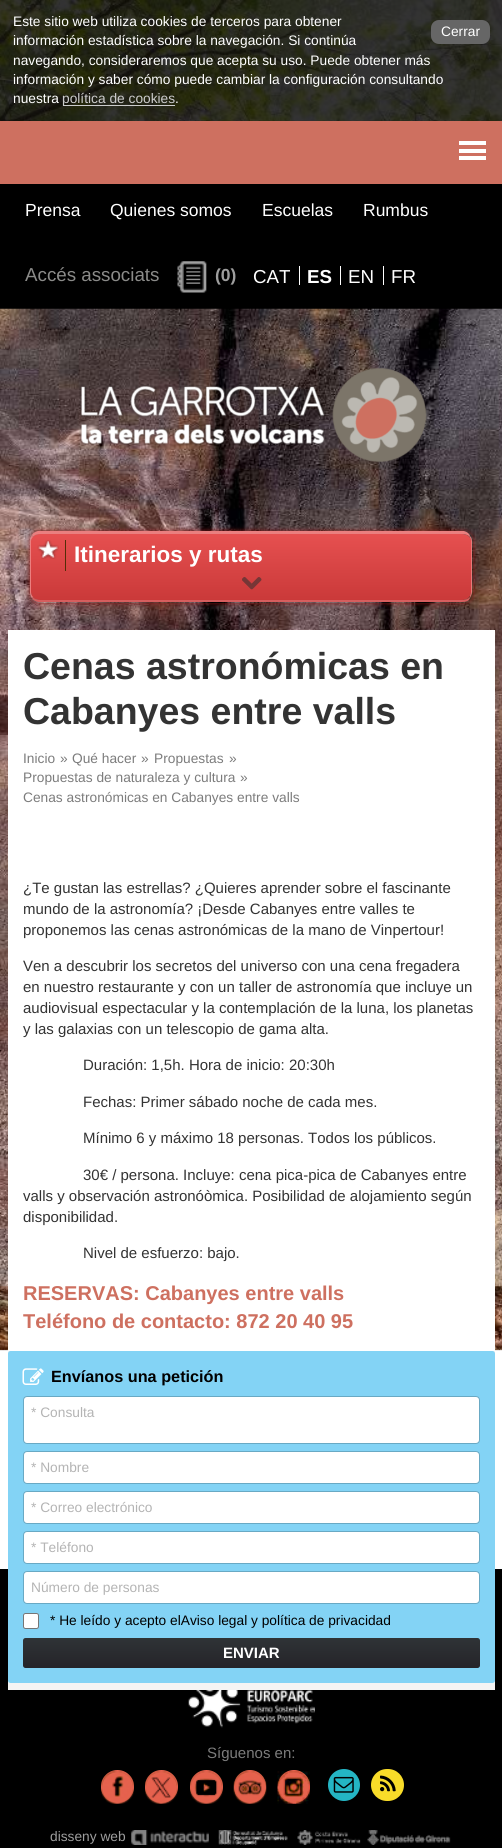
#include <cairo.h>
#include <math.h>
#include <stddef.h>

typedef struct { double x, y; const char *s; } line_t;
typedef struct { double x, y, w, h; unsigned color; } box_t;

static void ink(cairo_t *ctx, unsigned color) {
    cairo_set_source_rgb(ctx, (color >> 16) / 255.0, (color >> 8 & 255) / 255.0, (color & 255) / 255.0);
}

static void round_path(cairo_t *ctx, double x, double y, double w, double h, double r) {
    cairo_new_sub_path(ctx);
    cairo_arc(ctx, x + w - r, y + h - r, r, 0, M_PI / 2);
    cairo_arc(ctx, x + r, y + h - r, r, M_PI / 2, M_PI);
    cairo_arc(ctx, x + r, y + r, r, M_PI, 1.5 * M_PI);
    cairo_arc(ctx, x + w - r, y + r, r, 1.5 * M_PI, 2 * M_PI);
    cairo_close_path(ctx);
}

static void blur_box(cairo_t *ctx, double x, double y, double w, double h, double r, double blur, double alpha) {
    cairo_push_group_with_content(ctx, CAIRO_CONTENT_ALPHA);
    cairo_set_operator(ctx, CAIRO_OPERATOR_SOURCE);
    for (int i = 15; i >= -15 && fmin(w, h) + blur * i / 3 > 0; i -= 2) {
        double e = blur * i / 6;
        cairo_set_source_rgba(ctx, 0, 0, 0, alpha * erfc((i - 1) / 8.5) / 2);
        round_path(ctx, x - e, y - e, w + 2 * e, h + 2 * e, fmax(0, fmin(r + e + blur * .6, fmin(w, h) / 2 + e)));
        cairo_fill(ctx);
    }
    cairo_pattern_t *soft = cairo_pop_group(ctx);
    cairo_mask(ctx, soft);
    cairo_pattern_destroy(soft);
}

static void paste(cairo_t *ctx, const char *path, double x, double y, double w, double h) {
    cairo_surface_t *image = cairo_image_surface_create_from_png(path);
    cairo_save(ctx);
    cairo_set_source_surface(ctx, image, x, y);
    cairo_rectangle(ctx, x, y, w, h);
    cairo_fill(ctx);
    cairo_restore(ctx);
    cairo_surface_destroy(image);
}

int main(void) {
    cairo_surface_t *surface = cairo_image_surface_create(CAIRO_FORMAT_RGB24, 502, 1848);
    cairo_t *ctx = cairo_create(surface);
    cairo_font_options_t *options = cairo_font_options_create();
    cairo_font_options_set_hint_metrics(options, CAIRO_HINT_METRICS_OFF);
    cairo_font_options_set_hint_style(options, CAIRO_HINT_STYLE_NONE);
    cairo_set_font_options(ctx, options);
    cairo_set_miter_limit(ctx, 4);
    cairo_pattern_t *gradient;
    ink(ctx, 0xFFFFFF);
    cairo_paint(ctx);
    paste(ctx, "media/1.png", 0, 0, 502, 1351);
    cairo_set_source_rgba(ctx, 0, 0, 0, 0.8);
    cairo_rectangle(ctx, 0, 0, 502, 121);
    cairo_fill(ctx);
    cairo_select_font_face(ctx, "Liberation Sans", CAIRO_FONT_SLANT_NORMAL, CAIRO_FONT_WEIGHT_NORMAL);
    cairo_set_font_size(ctx, 13.75);
    ink(ctx, 0xFFFFFF);
    cairo_move_to(ctx, 13, 26);
    cairo_show_text(ctx, "Este sitio web utiliza cookies de terceros para obtener");
    ink(ctx, 0x666666);
    round_path(ctx, 431, 20, 59, 24, 8);
    cairo_fill(ctx);
    ink(ctx, 0xFFFFFF);
    {
        static const line_t items[] = {
            {441, 36, "Cerrar"},
            {13, 45, "información estadística sobre la navegación. Si continúa"},
            {13, 65, "navegando, consideraremos que acepta su uso. Puede obtener más"},
            {13, 84, "información y saber cómo puede cambiar la configuración consultando"},
            {13, 103, "nuestra"},
        };
        for (size_t i = 0; i < sizeof items / sizeof *items; i++) {
            cairo_move_to(ctx, items[i].x, items[i].y);
            cairo_show_text(ctx, items[i].s);
        }
    }
    ink(ctx, 0xCCCCCC);
    cairo_rectangle(ctx, 63, 105, 112, 1);
    cairo_fill(ctx);
    cairo_move_to(ctx, 62, 103);
    cairo_show_text(ctx, "política de cookies");
    ink(ctx, 0xFFFFFF);
    cairo_move_to(ctx, 175, 103);
    cairo_show_text(ctx, ".");
    {
        static const box_t items[] = {
            {0, 121, 502, 63, 0xCE7060},
            {459, 141, 27, 4, 0xFFFFFF},
            {459, 149, 27, 4, 0xFFFFFF},
            {459, 156, 27, 4, 0xFFFFFF},
            {0, 184, 502, 125, 0x000000},
        };
        for (size_t i = 0; i < sizeof items / sizeof *items; i++) {
            ink(ctx, items[i].color);
            cairo_rectangle(ctx, items[i].x, items[i].y, items[i].w, items[i].h);
            cairo_fill(ctx);
        }
    }
    cairo_set_font_size(ctx, 17.5);
    ink(ctx, 0xFFFFFF);
    {
        static const line_t items[] = {
            {25, 216, "Prensa"},
            {110, 216, "Quienes somos"},
            {262, 216, "Escuelas"},
            {363, 216, "Rumbus"},
        };
        for (size_t i = 0; i < sizeof items / sizeof *items; i++) {
            cairo_move_to(ctx, items[i].x, items[i].y);
            cairo_show_text(ctx, items[i].s);
        }
    }
    cairo_set_font_size(ctx, 18.75);
    ink(ctx, 0x8B8B89);
    cairo_move_to(ctx, 25, 281);
    cairo_show_text(ctx, "Accés associats");
    paste(ctx, "media/2.png", 177, 261, 30, 32);
    cairo_select_font_face(ctx, "Liberation Sans", CAIRO_FONT_SLANT_NORMAL, CAIRO_FONT_WEIGHT_BOLD);
    cairo_set_font_size(ctx, 17.5);
    ink(ctx, 0x9E9E9E);
    cairo_move_to(ctx, 215, 281);
    cairo_show_text(ctx, "(0)");
    cairo_select_font_face(ctx, "Liberation Sans", CAIRO_FONT_SLANT_NORMAL, CAIRO_FONT_WEIGHT_NORMAL);
    cairo_set_font_size(ctx, 18.75);
    ink(ctx, 0xFFFFFF);
    cairo_move_to(ctx, 253, 283);
    cairo_show_text(ctx, "CAT");
    cairo_rectangle(ctx, 299, 266, 1, 19);
    cairo_fill(ctx);
    cairo_select_font_face(ctx, "Liberation Sans", CAIRO_FONT_SLANT_NORMAL, CAIRO_FONT_WEIGHT_BOLD);
    cairo_move_to(ctx, 307, 283);
    cairo_show_text(ctx, "ES");
    cairo_rectangle(ctx, 340, 266, 1, 19);
    cairo_fill(ctx);
    cairo_select_font_face(ctx, "Liberation Sans", CAIRO_FONT_SLANT_NORMAL, CAIRO_FONT_WEIGHT_NORMAL);
    cairo_move_to(ctx, 348, 283);
    cairo_show_text(ctx, "EN");
    cairo_rectangle(ctx, 383, 266, 1, 19);
    cairo_fill(ctx);
    cairo_move_to(ctx, 391, 283);
    cairo_show_text(ctx, "FR");
    paste(ctx, "media/3.png", 0, 308, 502, 979);
    paste(ctx, "media/4.png", 79, 368, 348, 94);
    cairo_save(ctx);
    cairo_set_fill_rule(ctx, CAIRO_FILL_RULE_EVEN_ODD);
    cairo_new_path(ctx);
    cairo_move_to(ctx, 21, 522);
    cairo_line_to(ctx, 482, 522);
    cairo_line_to(ctx, 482, 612);
    cairo_line_to(ctx, 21, 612);
    cairo_close_path(ctx);
    cairo_move_to(ctx, 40, 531);
    cairo_line_to(ctx, 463, 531);
    cairo_curve_to(ctx, 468.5, 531, 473, 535.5, 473, 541);
    cairo_line_to(ctx, 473, 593);
    cairo_curve_to(ctx, 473, 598.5, 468.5, 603, 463, 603);
    cairo_line_to(ctx, 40, 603);
    cairo_curve_to(ctx, 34.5, 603, 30, 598.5, 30, 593);
    cairo_line_to(ctx, 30, 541);
    cairo_curve_to(ctx, 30, 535.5, 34.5, 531, 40, 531);
    cairo_close_path(ctx);
    cairo_clip(ctx);
    ink(ctx, 0x8A1919);
    blur_box(ctx, 30, 531, 443, 72, 10, 2.5, 1);
    cairo_restore(ctx);
    gradient = cairo_pattern_create_linear(251, 534, 251, 600);
    cairo_pattern_add_color_stop_rgba(gradient, 0, 0.902, 0.314, 0.314, 1);
    cairo_pattern_add_color_stop_rgba(gradient, 1, 0.792, 0.224, 0.224, 1);
    cairo_set_source(ctx, gradient);
    cairo_pattern_destroy(gradient);
    cairo_new_path(ctx);
    cairo_move_to(ctx, 40, 534);
    cairo_line_to(ctx, 462, 534);
    cairo_curve_to(ctx, 467, 534, 471, 537, 471, 541);
    cairo_line_to(ctx, 471, 592);
    cairo_curve_to(ctx, 471, 597, 467, 600, 462, 600);
    cairo_line_to(ctx, 40, 600);
    cairo_curve_to(ctx, 35, 600, 31, 597, 31, 592);
    cairo_line_to(ctx, 31, 541);
    cairo_curve_to(ctx, 31, 537, 35, 534, 40, 534);
    cairo_close_path(ctx);
    cairo_fill(ctx);
    ink(ctx, 0xEA7F7F);
    cairo_new_path(ctx);
    cairo_move_to(ctx, 40, 534);
    cairo_curve_to(ctx, 37, 534, 34, 535, 33, 537);
    cairo_line_to(ctx, 32, 535);
    cairo_curve_to(ctx, 33, 533, 35, 532, 38, 531);
    cairo_line_to(ctx, 464, 531);
    cairo_curve_to(ctx, 467, 532, 469, 533, 470, 536);
    cairo_line_to(ctx, 470, 537);
    cairo_curve_to(ctx, 468, 535, 465, 534, 462, 534);
    cairo_close_path(ctx);
    cairo_fill(ctx);
    ink(ctx, 0xE97A7A);
    cairo_new_path(ctx);
    cairo_move_to(ctx, 470, 536);
    cairo_curve_to(ctx, 471, 537, 472, 539, 472, 541);
    cairo_line_to(ctx, 472, 592);
    cairo_curve_to(ctx, 472, 594, 471, 596, 470, 598);
    cairo_line_to(ctx, 470, 597);
    cairo_curve_to(ctx, 470, 595, 471, 594, 471, 592);
    cairo_line_to(ctx, 471, 541);
    cairo_curve_to(ctx, 471, 540, 470, 538, 470, 537);
    cairo_close_path(ctx);
    cairo_fill(ctx);
    ink(ctx, 0xD65E5E);
    cairo_new_path(ctx);
    cairo_move_to(ctx, 470, 598);
    cairo_curve_to(ctx, 469, 601, 466, 602, 462, 602);
    cairo_line_to(ctx, 40, 602);
    cairo_curve_to(ctx, 37, 602, 34, 601, 32, 598);
    cairo_line_to(ctx, 33, 597);
    cairo_curve_to(ctx, 34, 599, 37, 600, 40, 600);
    cairo_line_to(ctx, 462, 600);
    cairo_curve_to(ctx, 465, 600, 468, 599, 470, 597);
    cairo_close_path(ctx);
    cairo_fill(ctx);
    ink(ctx, 0xEB7F7F);
    cairo_new_path(ctx);
    cairo_move_to(ctx, 30, 541);
    cairo_line_to(ctx, 30, 592);
    cairo_curve_to(ctx, 30, 595, 31, 597, 32, 598);
    cairo_line_to(ctx, 33, 597);
    cairo_curve_to(ctx, 32, 596, 31, 594, 31, 592);
    cairo_line_to(ctx, 31, 541);
    cairo_curve_to(ctx, 31, 539, 32, 538, 33, 537);
    cairo_line_to(ctx, 32, 535);
    cairo_curve_to(ctx, 31, 537, 30, 539, 30, 541);
    cairo_close_path(ctx);
    cairo_fill(ctx);
    paste(ctx, "media/5.png", 37, 540, 22, 19);
    ink(ctx, 0x532E07);
    cairo_rectangle(ctx, 65, 540, 1, 31);
    cairo_fill(ctx);
    cairo_select_font_face(ctx, "Liberation Sans", CAIRO_FONT_SLANT_NORMAL, CAIRO_FONT_WEIGHT_BOLD);
    cairo_set_font_size(ctx, 22.5);
    ink(ctx, 0xFFFFFF);
    cairo_move_to(ctx, 74, 562);
    cairo_show_text(ctx, "Itinerarios y rutas");
    paste(ctx, "media/6.png", 242, 577, 20, 13);
    cairo_rectangle(ctx, 8, 630, 487, 721);
    cairo_fill(ctx);
    cairo_set_font_size(ctx, 37.5);
    ink(ctx, 0x333333);
    cairo_move_to(ctx, 23, 679);
    cairo_show_text(ctx, "Cenas astronómicas en");
    cairo_move_to(ctx, 23, 724);
    cairo_show_text(ctx, "Cabanyes entre valls");
    cairo_select_font_face(ctx, "Liberation Sans", CAIRO_FONT_SLANT_NORMAL, CAIRO_FONT_WEIGHT_NORMAL);
    cairo_set_font_size(ctx, 13.75);
    ink(ctx, 0x7C7C7C);
    {
        static const line_t items[] = {
            {23, 763, "Inicio"},
            {60, 763, "»"},
            {72, 763, "Qué hacer"},
            {141, 763, "»"},
            {154, 763, "Propuestas"},
            {229, 763, "»"},
            {23, 782, "Propuestas de naturaleza y cultura"},
            {240, 782, "»"},
            {23, 802, "Cenas astronómicas en Cabanyes entre valls"},
        };
        for (size_t i = 0; i < sizeof items / sizeof *items; i++) {
            cairo_move_to(ctx, items[i].x, items[i].y);
            cairo_show_text(ctx, items[i].s);
        }
    }
    cairo_set_font_size(ctx, 15);
    ink(ctx, 0x333333);
    {
        static const line_t items[] = {
            {23, 893, "¿Te gustan las estrellas? ¿Quieres aprender sobre el fascinante"},
            {23, 914, "mundo de la astronomía? ¡Desde Cabanyes entre valles te"},
            {23, 935, "proponemos las cenas astronómicas de la mano de Vinpertour!"},
            {23, 971, "Ven a descubrir los secretos del universo con una cena fregadera"},
            {23, 992, "en nuestro restaurante y con un taller de astronomía que incluye un"},
            {23, 1013, "audiovisual espectacular y la contemplación de la luna, los planetas"},
            {23, 1034, "y las galaxias con un telescopio de gama alta."},
            {83, 1070, "Duración: 1,5h. Hora de inicio: 20:30h"},
            {83, 1107, "Fechas: Primer sábado noche de cada mes."},
            {83, 1143, "Mínimo 6 y máximo 18 personas. Todos los públicos."},
            {83, 1180, "30€ / persona. Incluye: cena pica-pica de Cabanyes entre"},
            {23, 1201, "valls y observación astronóòmica. Posibilidad de alojamiento según"},
            {23, 1222, "disponibilidad."},
            {83, 1258, "Nivel de esfuerzo: bajo."},
        };
        for (size_t i = 0; i < sizeof items / sizeof *items; i++) {
            cairo_move_to(ctx, items[i].x, items[i].y);
            cairo_show_text(ctx, items[i].s);
        }
    }
    cairo_select_font_face(ctx, "Liberation Sans", CAIRO_FONT_SLANT_NORMAL, CAIRO_FONT_WEIGHT_BOLD);
    cairo_set_font_size(ctx, 20);
    ink(ctx, 0xCE7060);
    cairo_move_to(ctx, 23, 1300);
    cairo_show_text(ctx, "RESERVAS: Cabanyes entre valls");
    cairo_move_to(ctx, 23, 1328);
    cairo_show_text(ctx, "Teléfono de contacto: 872 20 40 95");
    ink(ctx, 0x000000);
    cairo_rectangle(ctx, 0, 1569, 502, 279);
    cairo_fill(ctx);
    ink(ctx, 0xF4F4F4);
    cairo_rectangle(ctx, 8, 1351, 487, 339);
    cairo_fill(ctx);
    ink(ctx, 0x83D3F5);
    round_path(ctx, 8, 1351, 487, 332, 2.5);
    cairo_fill(ctx);
    paste(ctx, "media/7.png", 22, 1368, 22, 17);
    cairo_set_font_size(ctx, 16.25);
    ink(ctx, 0x000000);
    cairo_move_to(ctx, 51, 1382);
    cairo_show_text(ctx, "Envíanos una petición");
    ink(ctx, 0xFFFFFF);
    round_path(ctx, 23.5, 1396.5, 456, 47, 3.5);
    cairo_fill_preserve(ctx);
    ink(ctx, 0x69A9C4);
    cairo_set_line_width(ctx, 1);
    cairo_stroke(ctx);
    cairo_select_font_face(ctx, "Liberation Sans", CAIRO_FONT_SLANT_NORMAL, CAIRO_FONT_WEIGHT_NORMAL);
    cairo_set_font_size(ctx, 13.75);
    ink(ctx, 0xB4B4B4);
    cairo_move_to(ctx, 31, 1417);
    cairo_show_text(ctx, "* Consulta");
    ink(ctx, 0xFFFFFF);
    round_path(ctx, 23.5, 1451.5, 456, 32, 3.5);
    cairo_fill_preserve(ctx);
    ink(ctx, 0x69A9C4);
    cairo_stroke(ctx);
    ink(ctx, 0xB4B4B4);
    cairo_move_to(ctx, 31, 1472);
    cairo_show_text(ctx, "* Nombre");
    ink(ctx, 0xFFFFFF);
    round_path(ctx, 23.5, 1491.5, 456, 32, 3.5);
    cairo_fill_preserve(ctx);
    ink(ctx, 0x69A9C4);
    cairo_stroke(ctx);
    ink(ctx, 0xB4B4B4);
    cairo_move_to(ctx, 31, 1512);
    cairo_show_text(ctx, "* Correo electrónico");
    ink(ctx, 0xFFFFFF);
    round_path(ctx, 23.5, 1531.5, 456, 32, 3.5);
    cairo_fill_preserve(ctx);
    ink(ctx, 0x69A9C4);
    cairo_stroke(ctx);
    ink(ctx, 0xB4B4B4);
    cairo_move_to(ctx, 31, 1552);
    cairo_show_text(ctx, "* Teléfono");
    ink(ctx, 0xFFFFFF);
    round_path(ctx, 23.5, 1571.5, 456, 32, 3.5);
    cairo_fill_preserve(ctx);
    ink(ctx, 0x69A9C4);
    cairo_stroke(ctx);
    ink(ctx, 0xB4B4B4);
    cairo_move_to(ctx, 31, 1592);
    cairo_show_text(ctx, "Número de personas");
    ink(ctx, 0xFFFFFF);
    round_path(ctx, 23.5, 1613.5, 15, 15, 2);
    cairo_fill_preserve(ctx);
    ink(ctx, 0x767676);
    cairo_stroke(ctx);
    ink(ctx, 0x000000);
    cairo_move_to(ctx, 50, 1625);
    cairo_show_text(ctx, "* He leído y acepto elAviso legal y política de privacidad");
    gradient = cairo_pattern_create_linear(251, 1638, 251, 1668);
    cairo_pattern_add_color_stop_rgba(gradient, 0, 0.184, 0.2, 0.212, 1);
    cairo_pattern_add_color_stop_rgba(gradient, 1, 0.145, 0.141, 0.161, 1);
    cairo_set_source(ctx, gradient);
    cairo_pattern_destroy(gradient);
    round_path(ctx, 23, 1638, 457, 30, 2.5);
    cairo_fill(ctx);
    cairo_select_font_face(ctx, "Liberation Sans", CAIRO_FONT_SLANT_NORMAL, CAIRO_FONT_WEIGHT_BOLD);
    cairo_set_font_size(ctx, 15);
    ink(ctx, 0xFFFFFF);
    cairo_move_to(ctx, 223, 1658);
    cairo_show_text(ctx, "ENVIAR");
    paste(ctx, "media/8.png", 188, 1690, 127, 38);
    cairo_select_font_face(ctx, "Liberation Sans", CAIRO_FONT_SLANT_NORMAL, CAIRO_FONT_WEIGHT_NORMAL);
    ink(ctx, 0x7C7C7C);
    cairo_move_to(ctx, 207, 1758);
    cairo_show_text(ctx, "Síguenos en:");
    ink(ctx, 0xE6624E);
    cairo_new_path(ctx);
    cairo_arc(ctx, 117.5, 1786.5, 16.5, 0, 2 * M_PI);
    cairo_fill(ctx);
    paste(ctx, "media/9.png", 101, 1771, 33, 33);
    cairo_arc(ctx, 161.5, 1786.5, 16.5, 0, 2 * M_PI);
    cairo_fill(ctx);
    paste(ctx, "media/10.png", 145, 1771, 33, 33);
    cairo_arc(ctx, 206.5, 1786.5, 16.5, 0, 2 * M_PI);
    cairo_fill(ctx);
    paste(ctx, "media/11.png", 190, 1771, 33, 33);
    round_path(ctx, 234, 1770, 32, 33, 16);
    cairo_fill(ctx);
    paste(ctx, "media/12.png", 233, 1771, 34, 33);
    round_path(ctx, 278, 1770, 32, 33, 16);
    cairo_fill(ctx);
    paste(ctx, "media/13.png", 277, 1771, 33, 33);
    ink(ctx, 0x24B5C4);
    cairo_arc(ctx, 344, 1785, 16, 0, 2 * M_PI);
    cairo_fill(ctx);
    paste(ctx, "media/14.png", 333, 1776, 21, 17);
    ink(ctx, 0xF9DC29);
    round_path(ctx, 371, 1769, 33, 32, 16);
    cairo_fill(ctx);
    paste(ctx, "media/15.png", 380, 1775, 16, 17);
    cairo_set_font_size(ctx, 13.75);
    ink(ctx, 0x9E9E9E);
    cairo_move_to(ctx, 50, 1841);
    cairo_show_text(ctx, "disseny web");
    paste(ctx, "media/16.png", 131, 1830, 320, 15);
    cairo_surface_write_to_png(surface, "image.png");
    cairo_font_options_destroy(options);
    cairo_destroy(ctx);
    cairo_surface_destroy(surface);
    return 0;
}
